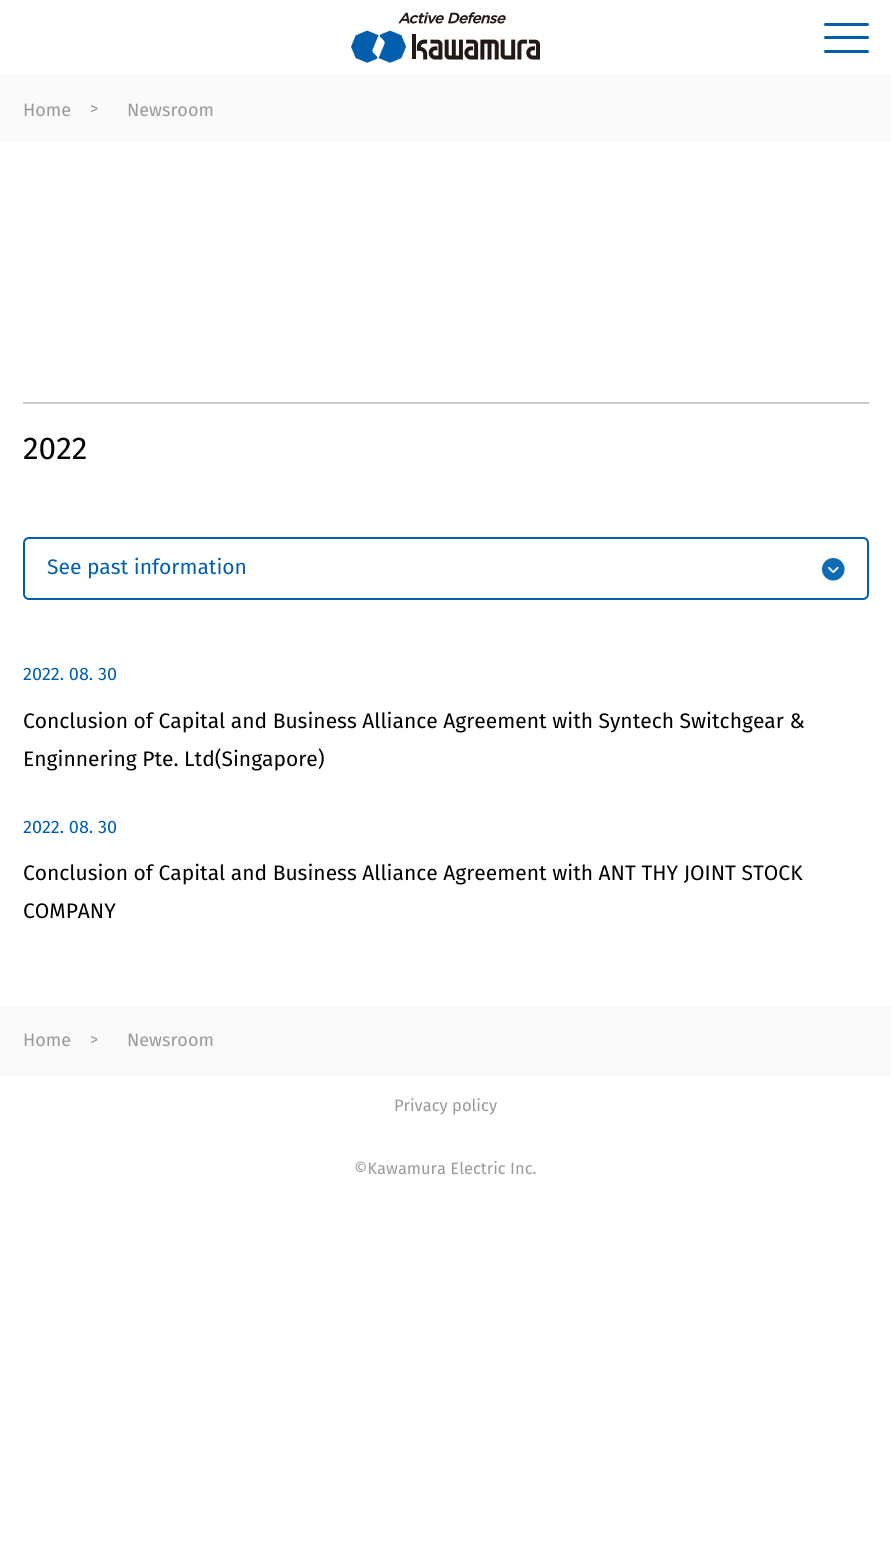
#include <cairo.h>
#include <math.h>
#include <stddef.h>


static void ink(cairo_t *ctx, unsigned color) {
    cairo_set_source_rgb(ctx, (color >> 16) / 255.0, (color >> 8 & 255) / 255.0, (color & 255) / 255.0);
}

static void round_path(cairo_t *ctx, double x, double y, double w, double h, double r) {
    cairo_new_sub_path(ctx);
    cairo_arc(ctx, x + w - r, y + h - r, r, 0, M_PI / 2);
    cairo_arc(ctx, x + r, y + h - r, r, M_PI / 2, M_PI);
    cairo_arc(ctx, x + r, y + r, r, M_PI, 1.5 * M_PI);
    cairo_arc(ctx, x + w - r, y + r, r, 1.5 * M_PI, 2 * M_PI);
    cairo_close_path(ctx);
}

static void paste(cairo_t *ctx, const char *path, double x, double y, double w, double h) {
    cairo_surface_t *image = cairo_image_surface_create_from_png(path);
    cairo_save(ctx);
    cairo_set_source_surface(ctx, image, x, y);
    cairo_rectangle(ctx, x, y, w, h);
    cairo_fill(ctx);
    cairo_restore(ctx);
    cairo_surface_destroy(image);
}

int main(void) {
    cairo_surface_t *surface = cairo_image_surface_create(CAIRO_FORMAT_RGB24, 891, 1545);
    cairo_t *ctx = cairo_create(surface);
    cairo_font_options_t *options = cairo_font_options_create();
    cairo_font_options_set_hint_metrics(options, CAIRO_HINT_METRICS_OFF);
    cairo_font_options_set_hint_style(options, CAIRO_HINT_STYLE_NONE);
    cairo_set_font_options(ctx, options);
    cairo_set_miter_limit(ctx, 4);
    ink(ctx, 0xFFFFFF);
    cairo_paint(ctx);
    paste(ctx, "media/1.png", 351, 12, 189, 51);
    ink(ctx, 0x005EAD);
    round_path(ctx, 824, 23, 45, 3, 1.5);
    cairo_fill(ctx);
    round_path(ctx, 824, 36, 45, 3, 1.5);
    cairo_fill(ctx);
    round_path(ctx, 824, 50, 45, 3, 1.5);
    cairo_fill(ctx);
    ink(ctx, 0xFAFAFA);
    cairo_rectangle(ctx, 0, 75, 891, 66);
    cairo_fill(ctx);
    cairo_select_font_face(ctx, "Fira Sans", CAIRO_FONT_SLANT_NORMAL, CAIRO_FONT_WEIGHT_NORMAL);
    cairo_set_font_size(ctx, 18);
    ink(ctx, 0x999999);
    cairo_move_to(ctx, 23, 116);
    cairo_show_text(ctx, "Home");
    cairo_set_font_size(ctx, 16.5);
    cairo_move_to(ctx, 90, 114);
    cairo_show_text(ctx, ">");
    cairo_set_font_size(ctx, 18);
    cairo_move_to(ctx, 127, 116);
    cairo_show_text(ctx, "Newsroom");
    ink(ctx, 0xCCCCCC);
    cairo_rectangle(ctx, 23, 402, 846, 2);
    cairo_fill(ctx);
    cairo_set_font_size(ctx, 31.5);
    ink(ctx, 0x000000);
    cairo_move_to(ctx, 23, 459);
    cairo_show_text(ctx, "2022");
    round_path(ctx, 24, 538, 844, 61, 5);
    ink(ctx, 0x005EAD);
    cairo_stroke(ctx);
    cairo_set_font_size(ctx, 21);
    cairo_move_to(ctx, 47, 574);
    cairo_show_text(ctx, "See past information");
    paste(ctx, "media/2.png", 822, 558, 23, 23);
    cairo_set_font_size(ctx, 18);
    cairo_move_to(ctx, 23, 680);
    cairo_show_text(ctx, "2022. 08. 30");
    cairo_set_font_size(ctx, 21);
    ink(ctx, 0x000000);
    cairo_move_to(ctx, 23, 728);
    cairo_show_text(ctx, "Conclusion of Capital and Business Alliance Agreement with Syntech Switchgear &");
    cairo_move_to(ctx, 23, 766);
    cairo_show_text(ctx, "Enginnering Pte. Ltd(Singapore)");
    cairo_set_font_size(ctx, 18);
    ink(ctx, 0x005EAD);
    cairo_move_to(ctx, 23, 833);
    cairo_show_text(ctx, "2022. 08. 30");
    cairo_set_font_size(ctx, 21);
    ink(ctx, 0x000000);
    cairo_move_to(ctx, 23, 880);
    cairo_show_text(ctx, "Conclusion of Capital and Business Alliance Agreement with ANT THY JOINT STOCK");
    cairo_move_to(ctx, 23, 918);
    cairo_show_text(ctx, "COMPANY");
    ink(ctx, 0xFAFAFA);
    cairo_rectangle(ctx, 0, 1007, 891, 69);
    cairo_fill(ctx);
    cairo_set_font_size(ctx, 18);
    ink(ctx, 0x999999);
    cairo_move_to(ctx, 23, 1046);
    cairo_show_text(ctx, "Home");
    cairo_set_font_size(ctx, 16.5);
    cairo_move_to(ctx, 90, 1045);
    cairo_show_text(ctx, ">");
    cairo_set_font_size(ctx, 18);
    cairo_move_to(ctx, 127, 1046);
    cairo_show_text(ctx, "Newsroom");
    cairo_set_font_size(ctx, 16.5);
    cairo_move_to(ctx, 394, 1111);
    cairo_show_text(ctx, "Privacy policy");
    cairo_move_to(ctx, 354, 1174);
    cairo_show_text(ctx, "©Kawamura Electric Inc.");
    cairo_surface_write_to_png(surface, "image.png");
    cairo_font_options_destroy(options);
    cairo_destroy(ctx);
    cairo_surface_destroy(surface);
    return 0;
}
